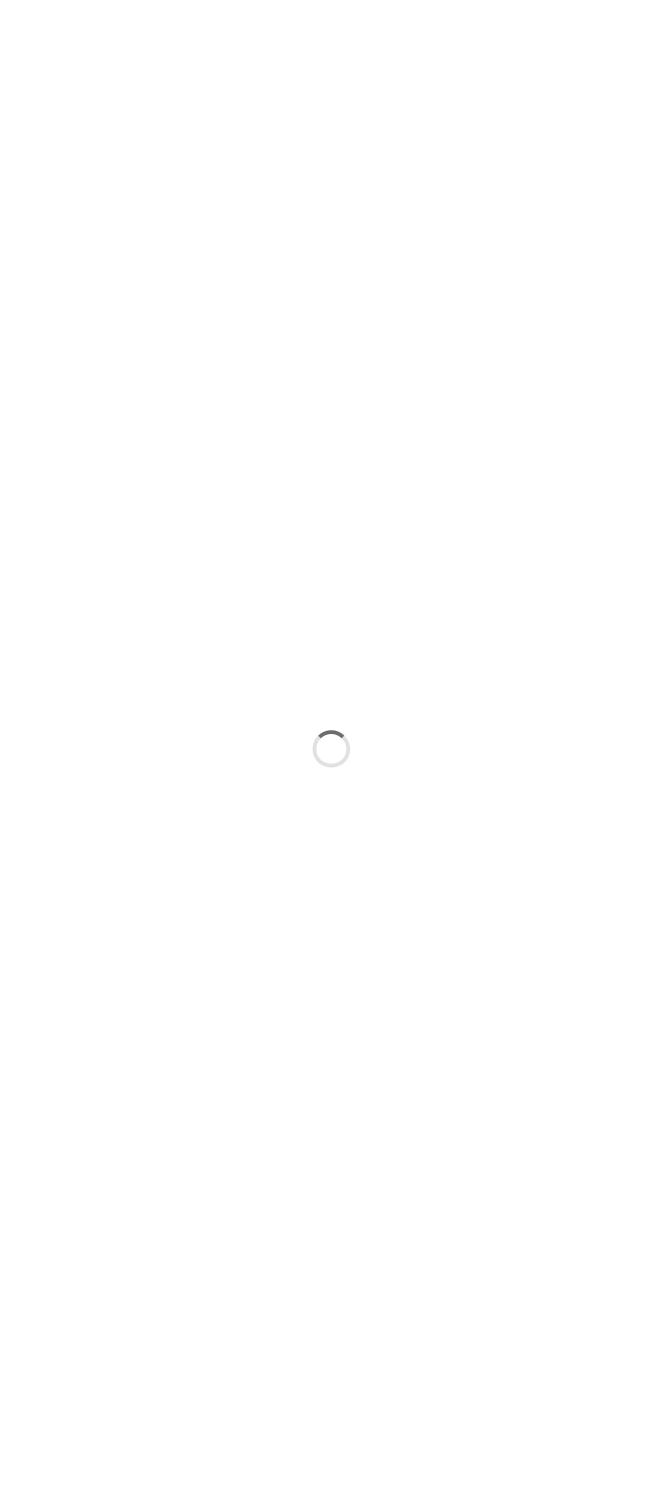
#include <cairo.h>
#include <math.h>
#include <stddef.h>


static void ink(cairo_t *ctx, unsigned color) {
    cairo_set_source_rgb(ctx, (color >> 16) / 255.0, (color >> 8 & 255) / 255.0, (color & 255) / 255.0);
}

int main(void) {
    cairo_surface_t *surface = cairo_image_surface_create(CAIRO_FORMAT_RGB24, 662, 1496);
    cairo_t *ctx = cairo_create(surface);
    cairo_font_options_t *options = cairo_font_options_create();
    cairo_font_options_set_hint_metrics(options, CAIRO_HINT_METRICS_OFF);
    cairo_font_options_set_hint_style(options, CAIRO_HINT_STYLE_NONE);
    cairo_set_font_options(ctx, options);
    cairo_set_miter_limit(ctx, 4);
    ink(ctx, 0xFFFFFF);
    cairo_paint(ctx);
    cairo_new_path(ctx);
    cairo_move_to(ctx, 319.5, 737);
    cairo_curve_to(ctx, 326, 730.5, 336.5, 730.5, 343, 737);
    ink(ctx, 0x6C6C6C);
    cairo_set_line_width(ctx, 3.8);
    cairo_stroke(ctx);
    cairo_new_path(ctx);
    cairo_move_to(ctx, 343, 737);
    cairo_curve_to(ctx, 347, 741, 349, 746.5, 348, 752);
    cairo_curve_to(ctx, 344, 772, 314.5, 769, 314.5, 749);
    cairo_curve_to(ctx, 314.5, 744.5, 316, 740, 319.5, 737);
    cairo_set_source_rgba(ctx, 0.424, 0.424, 0.424, 0.2);
    cairo_stroke(ctx);
    cairo_surface_write_to_png(surface, "image.png");
    cairo_font_options_destroy(options);
    cairo_destroy(ctx);
    cairo_surface_destroy(surface);
    return 0;
}
